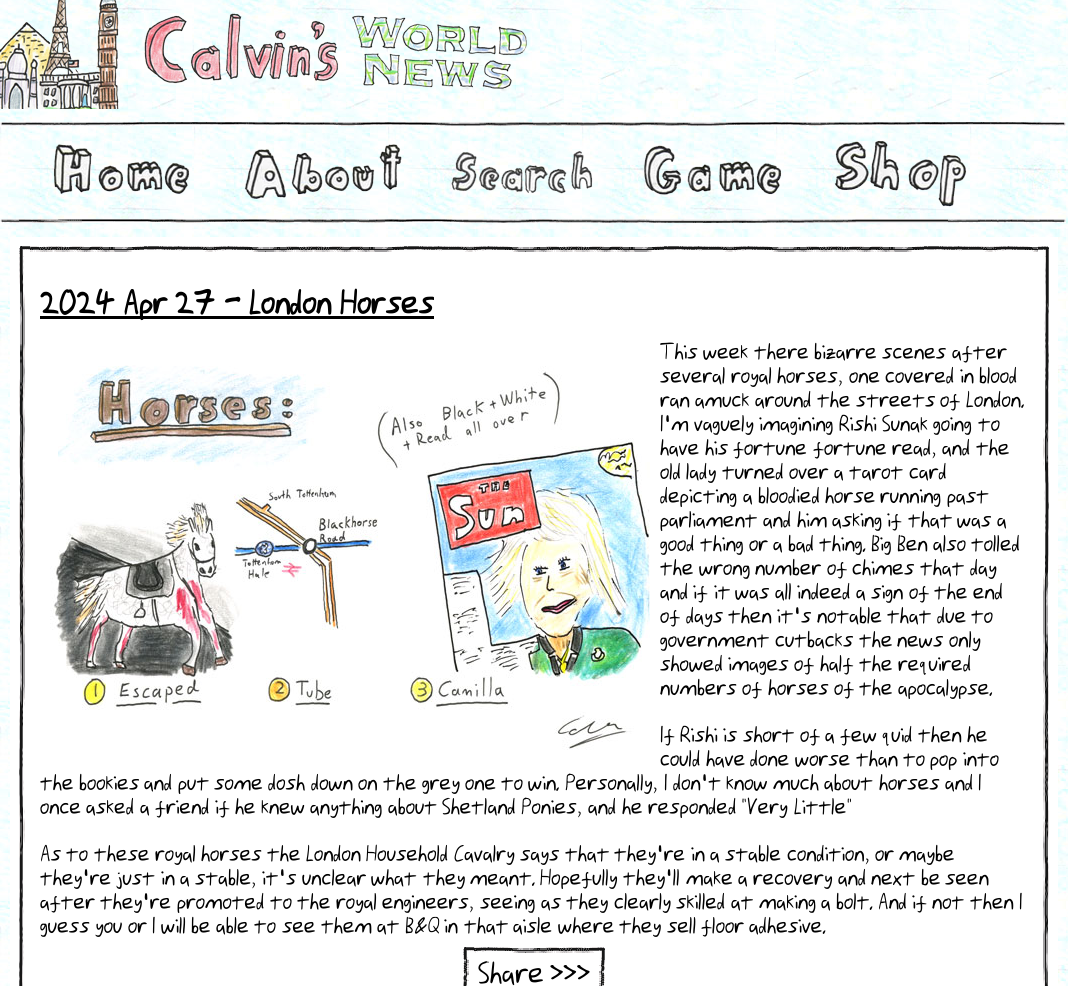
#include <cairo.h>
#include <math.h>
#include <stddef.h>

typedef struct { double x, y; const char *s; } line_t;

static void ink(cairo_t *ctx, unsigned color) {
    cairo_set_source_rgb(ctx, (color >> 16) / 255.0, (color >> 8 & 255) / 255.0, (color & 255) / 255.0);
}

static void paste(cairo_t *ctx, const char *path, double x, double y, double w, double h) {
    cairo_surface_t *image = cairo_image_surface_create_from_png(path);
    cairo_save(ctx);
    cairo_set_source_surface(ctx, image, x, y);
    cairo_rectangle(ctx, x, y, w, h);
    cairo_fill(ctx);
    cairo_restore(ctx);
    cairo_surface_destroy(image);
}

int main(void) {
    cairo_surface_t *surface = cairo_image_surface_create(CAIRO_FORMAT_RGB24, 1068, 986);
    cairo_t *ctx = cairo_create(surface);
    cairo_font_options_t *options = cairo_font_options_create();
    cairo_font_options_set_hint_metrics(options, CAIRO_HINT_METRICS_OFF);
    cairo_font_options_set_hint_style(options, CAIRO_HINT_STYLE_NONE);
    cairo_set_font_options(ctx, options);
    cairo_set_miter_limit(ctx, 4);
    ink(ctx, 0xFFFFFF);
    cairo_paint(ctx);
    paste(ctx, "media/1.png", 0, 0, 1068, 986);
    paste(ctx, "media/2.png", 0, 0, 527, 109);
    paste(ctx, "media/3.png", 0, 122, 1066, 4);
    paste(ctx, "media/4.png", 53, 144, 137, 50);
    paste(ctx, "media/5.png", 244, 144, 158, 55);
    paste(ctx, "media/6.png", 451, 151, 142, 43);
    paste(ctx, "media/7.png", 644, 145, 138, 50);
    paste(ctx, "media/8.png", 834, 140, 133, 67);
    paste(ctx, "media/9.png", 0, 219, 1066, 4);
    ink(ctx, 0xFFFFFF);
    cairo_rectangle(ctx, 10, 237, 1048, 749);
    cairo_fill(ctx);
    paste(ctx, "media/10.png", 19, 246, 1030, 740);
    cairo_select_font_face(ctx, "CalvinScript", CAIRO_FONT_SLANT_NORMAL, CAIRO_FONT_WEIGHT_BOLD);
    cairo_set_font_size(ctx, 31);
    ink(ctx, 0x000000);
    cairo_move_to(ctx, 40, 314);
    cairo_show_text(ctx, "2024");
    cairo_rectangle(ctx, 40, 316, 394, 3);
    cairo_fill(ctx);
    {
        static const line_t items[] = {
            {123, 314, "Apr"},
            {175, 314, "27"},
            {223, 314, "-"},
            {249, 314, "London"},
            {340, 314, "Horses"},
        };
        for (size_t i = 0; i < sizeof items / sizeof *items; i++) {
            cairo_move_to(ctx, items[i].x, items[i].y);
            cairo_show_text(ctx, items[i].s);
        }
    }
    cairo_select_font_face(ctx, "CalvinScript", CAIRO_FONT_SLANT_NORMAL, CAIRO_FONT_WEIGHT_NORMAL);
    cairo_set_font_size(ctx, 20.75);
    {
        static const line_t items[] = {
            {660, 359, "This"},
            {703, 359, "week"},
            {754, 359, "there"},
            {814, 359, "bizarre"},
            {882, 359, "scenes"},
            {952, 359, "after"},
            {660, 383, "several"},
            {731, 383, "royal"},
            {777, 383, "horses,"},
            {849, 383, "one"},
            {885, 383, "covered"},
            {960, 383, "in"},
            {979, 383, "blood"},
            {660, 407, "ran"},
            {695, 407, "amuck"},
            {755, 407, "around"},
            {817, 407, "the"},
            {856, 407, "streets"},
            {940, 407, "of"},
            {966, 407, "London."},
            {660, 431, "I'm"},
            {694, 431, "vaguely"},
            {759, 431, "imagining"},
            {839, 431, "Rishi"},
            {882, 431, "Sunak"},
            {933, 431, "going"},
            {978, 431, "to"},
            {660, 455, "have"},
            {705, 455, "his"},
            {733, 455, "fortune"},
            {813, 455, "fortune"},
            {892, 455, "read,"},
            {942, 455, "and"},
            {976, 455, "the"},
            {660, 479, "old"},
            {686, 479, "lady"},
            {722, 479, "turned"},
            {789, 479, "over"},
            {834, 479, "a"},
            {849, 479, "tarot"},
            {909, 479, "card"},
            {660, 503, "depicting"},
            {743, 503, "a"},
            {758, 503, "bloodied"},
            {825, 503, "horse"},
            {880, 503, "running"},
            {947, 503, "past"},
            {660, 527, "parliament"},
            {763, 527, "and"},
            {797, 527, "him"},
            {832, 527, "asking"},
            {887, 527, "if"},
            {908, 527, "that"},
            {957, 527, "was"},
            {997, 527, "a"},
            {660, 551, "good"},
            {700, 551, "thing"},
            {749, 551, "or"},
            {773, 551, "a"},
            {788, 551, "bad"},
            {819, 551, "thing."},
            {871, 551, "Big"},
            {897, 551, "Ben"},
            {933, 551, "also"},
            {971, 551, "tolled"},
            {660, 575, "the"},
            {699, 575, "wrong"},
            {755, 575, "number"},
            {827, 575, "of"},
            {852, 575, "chimes"},
            {920, 575, "that"},
            {970, 575, "day"},
            {660, 599, "and"},
            {693, 599, "if"},
            {714, 599, "it"},
            {735, 599, "was"},
            {775, 599, "all"},
            {797, 599, "indeed"},
            {856, 599, "a"},
            {871, 599, "sign"},
            {909, 599, "of"},
            {934, 599, "the"},
            {973, 599, "end"},
            {660, 623, "of"},
            {686, 623, "days"},
            {728, 623, "then"},
            {777, 623, "it's"},
            {817, 623, "notable"},
            {887, 623, "that"},
            {937, 623, "due"},
            {971, 623, "to"},
            {660, 647, "government"},
            {775, 647, "cutbacks"},
            {859, 647, "the"},
            {897, 647, "news"},
            {949, 647, "only"},
            {660, 671, "showed"},
            {728, 671, "images"},
            {794, 671, "of"},
            {820, 671, "half"},
            {859, 671, "the"},
            {898, 671, "required"},
            {660, 695, "numbers"},
            {742, 695, "of"},
            {768, 695, "horses"},
            {834, 695, "of"},
            {859, 695, "the"},
            {898, 695, "apocalypse."},
            {660, 742, "If"},
            {680, 742, "Rishi"},
            {723, 742, "is"},
            {743, 742, "short"},
            {800, 742, "of"},
            {825, 742, "a"},
            {840, 742, "few"},
            {882, 742, "quid"},
            {918, 742, "then"},
            {967, 742, "he"},
            {660, 766, "could"},
            {706, 766, "have"},
            {750, 766, "done"},
            {795, 766, "worse"},
            {856, 766, "than"},
            {903, 766, "to"},
            {930, 766, "pop"},
            {963, 766, "into"},
            {40, 790, "the"},
            {79, 790, "bookies"},
            {144, 790, "and"},
            {178, 790, "put"},
            {214, 790, "some"},
            {268, 790, "dosh"},
            {311, 790, "down"},
            {358, 790, "on"},
            {383, 790, "the"},
            {422, 790, "grey"},
            {465, 790, "one"},
            {501, 790, "to"},
            {528, 790, "win."},
            {565, 790, "Personally,"},
            {664, 790, "I"},
            {673, 790, "don't"},
            {726, 790, "know"},
            {773, 790, "much"},
            {824, 790, "about"},
            {879, 790, "horses"},
            {945, 790, "and"},
            {978, 790, "I"},
            {40, 814, "once"},
            {86, 814, "asked"},
            {140, 814, "a"},
            {155, 814, "friend"},
            {215, 814, "if"},
            {235, 814, "he"},
            {261, 814, "knew"},
            {310, 814, "anything"},
            {388, 814, "about"},
            {442, 814, "Shetland"},
            {521, 814, "Ponies,"},
            {588, 814, "and"},
            {622, 814, "he"},
            {648, 814, "responded"},
            {741, 814, "\"Very"},
            {794, 814, "Little\""},
            {40, 861, "As"},
            {66, 861, "to"},
            {94, 861, "these"},
            {155, 861, "royal"},
            {201, 861, "horses"},
            {267, 861, "the"},
            {306, 861, "London"},
            {366, 861, "Household"},
            {454, 861, "Cavalry"},
            {520, 861, "says"},
            {565, 861, "that"},
            {614, 861, "they're"},
            {691, 861, "in"},
            {710, 861, "a"},
            {725, 861, "stable"},
            {787, 861, "condition,"},
            {875, 861, "or"},
            {899, 861, "maybe"},
            {40, 885, "they're"},
            {116, 885, "just"},
            {161, 885, "in"},
            {180, 885, "a"},
            {195, 885, "stable,"},
            {262, 885, "it's"},
            {302, 885, "unclear"},
            {371, 885, "what"},
            {423, 885, "they"},
            {470, 885, "meant."},
            {540, 885, "Hopefully"},
            {623, 885, "they'll"},
            {686, 885, "make"},
            {738, 885, "a"},
            {753, 885, "recovery"},
            {838, 885, "and"},
            {871, 885, "next"},
            {921, 885, "be"},
            {945, 885, "seen"},
            {40, 909, "after"},
            {100, 909, "they're"},
            {177, 909, "promoted"},
            {270, 909, "to"},
            {297, 909, "the"},
            {336, 909, "royal"},
            {382, 909, "engineers,"},
            {480, 909, "seeing"},
            {541, 909, "as"},
            {566, 909, "they"},
            {614, 909, "clearly"},
            {676, 909, "skilled"},
            {731, 909, "at"},
            {759, 909, "making"},
            {821, 909, "a"},
            {836, 909, "bolt."},
            {878, 909, "And"},
            {912, 909, "if"},
            {932, 909, "not"},
            {970, 909, "then"},
            {1019, 909, "I"},
            {40, 933, "guess"},
            {95, 933, "you"},
            {128, 933, "or"},
            {152, 933, "I"},
            {161, 933, "will"},
            {191, 933, "be"},
            {216, 933, "able"},
            {254, 933, "to"},
            {282, 933, "see"},
            {321, 933, "them"},
            {377, 933, "at"},
            {405, 933, "B&Q"},
            {444, 933, "in"},
            {464, 933, "that"},
            {513, 933, "aisle"},
            {558, 933, "where"},
            {619, 933, "they"},
            {667, 933, "sell"},
            {701, 933, "floor"},
            {749, 933, "adhesive."},
        };
        for (size_t i = 0; i < sizeof items / sizeof *items; i++) {
            cairo_move_to(ctx, items[i].x, items[i].y);
            cairo_show_text(ctx, items[i].s);
        }
    }
    paste(ctx, "media/11.png", 50, 365, 600, 385);
    paste(ctx, "media/12.png", 463, 947, 142, 39);
    cairo_set_font_size(ctx, 28);
    cairo_move_to(ctx, 478, 983);
    cairo_show_text(ctx, "Share");
    cairo_move_to(ctx, 550, 983);
    cairo_show_text(ctx, ">>>");
    cairo_surface_write_to_png(surface, "image.png");
    cairo_font_options_destroy(options);
    cairo_destroy(ctx);
    cairo_surface_destroy(surface);
    return 0;
}
